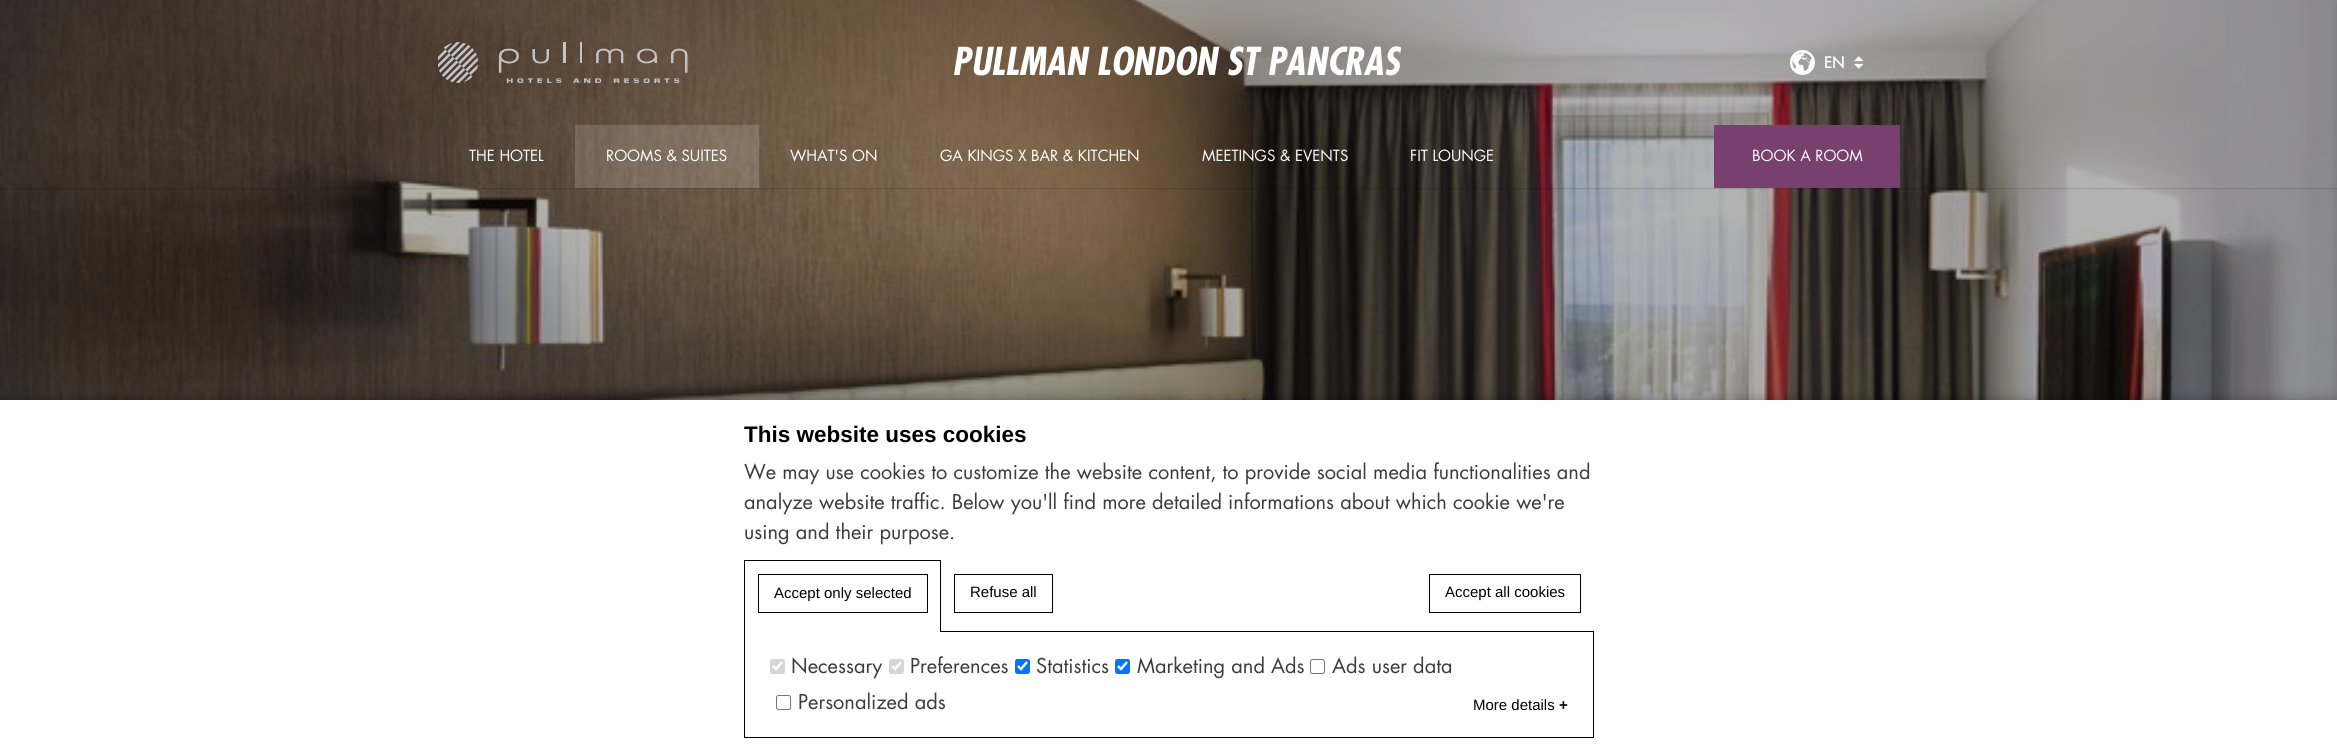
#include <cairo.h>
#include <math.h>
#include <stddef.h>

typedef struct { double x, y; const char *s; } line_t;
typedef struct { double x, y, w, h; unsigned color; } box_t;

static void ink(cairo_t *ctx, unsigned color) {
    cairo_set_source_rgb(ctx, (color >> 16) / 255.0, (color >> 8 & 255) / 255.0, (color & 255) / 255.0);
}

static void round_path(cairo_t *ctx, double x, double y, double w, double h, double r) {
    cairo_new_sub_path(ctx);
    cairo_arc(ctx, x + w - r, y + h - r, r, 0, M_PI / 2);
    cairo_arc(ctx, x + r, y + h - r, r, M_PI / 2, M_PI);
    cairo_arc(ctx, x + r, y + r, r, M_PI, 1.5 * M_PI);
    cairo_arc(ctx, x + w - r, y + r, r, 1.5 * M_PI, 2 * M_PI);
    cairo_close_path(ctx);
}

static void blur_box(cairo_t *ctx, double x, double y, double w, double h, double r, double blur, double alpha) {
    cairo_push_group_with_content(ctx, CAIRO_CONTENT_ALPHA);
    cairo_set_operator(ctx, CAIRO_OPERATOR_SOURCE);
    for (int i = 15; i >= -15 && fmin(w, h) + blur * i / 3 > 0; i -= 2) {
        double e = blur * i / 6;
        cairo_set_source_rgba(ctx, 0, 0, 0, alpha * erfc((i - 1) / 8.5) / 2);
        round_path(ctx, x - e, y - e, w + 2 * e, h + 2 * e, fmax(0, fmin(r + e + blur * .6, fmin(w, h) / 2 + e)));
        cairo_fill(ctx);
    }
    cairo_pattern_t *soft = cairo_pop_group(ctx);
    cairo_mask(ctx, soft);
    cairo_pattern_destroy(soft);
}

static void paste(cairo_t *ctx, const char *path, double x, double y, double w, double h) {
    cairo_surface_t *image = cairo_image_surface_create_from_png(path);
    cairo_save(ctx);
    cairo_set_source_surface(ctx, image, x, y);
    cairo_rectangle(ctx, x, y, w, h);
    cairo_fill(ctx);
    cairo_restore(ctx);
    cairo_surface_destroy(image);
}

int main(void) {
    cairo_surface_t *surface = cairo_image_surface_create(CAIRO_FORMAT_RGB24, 2337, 750);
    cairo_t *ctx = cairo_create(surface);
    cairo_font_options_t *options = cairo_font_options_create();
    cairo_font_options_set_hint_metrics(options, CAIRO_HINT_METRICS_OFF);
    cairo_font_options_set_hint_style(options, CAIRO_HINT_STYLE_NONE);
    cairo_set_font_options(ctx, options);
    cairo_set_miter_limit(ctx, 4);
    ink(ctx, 0xFFFFFF);
    cairo_paint(ctx);
    paste(ctx, "media/1.png", 0, 0, 2337, 400);
    cairo_save(ctx);
    cairo_set_fill_rule(ctx, CAIRO_FILL_RULE_EVEN_ODD);
    cairo_new_path(ctx);
    cairo_move_to(ctx, 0, 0);
    cairo_line_to(ctx, 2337, 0);
    cairo_line_to(ctx, 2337, 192);
    cairo_line_to(ctx, 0, 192);
    cairo_close_path(ctx);
    cairo_move_to(ctx, 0, 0);
    cairo_line_to(ctx, 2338, 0);
    cairo_line_to(ctx, 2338, 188);
    cairo_line_to(ctx, 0, 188);
    cairo_close_path(ctx);
    cairo_clip(ctx);
    ink(ctx, 0x000000);
    blur_box(ctx, 0, 1, 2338, 188, 0, 0.5, 0.15);
    cairo_restore(ctx);
    paste(ctx, "media/2.png", 438, 42, 250, 41);
    cairo_select_font_face(ctx, "Futura", CAIRO_FONT_SLANT_ITALIC, CAIRO_FONT_WEIGHT_BOLD);
    cairo_set_font_size(ctx, 37.5);
    ink(ctx, 0xFFFFFF);
    cairo_move_to(ctx, 952, 75);
    cairo_show_text(ctx, "PULLMAN LONDON ST PANCRAS");
    paste(ctx, "media/3.png", 1790, 50, 25, 25);
    cairo_select_font_face(ctx, "Futura", CAIRO_FONT_SLANT_NORMAL, CAIRO_FONT_WEIGHT_BOLD);
    cairo_set_font_size(ctx, 15);
    cairo_move_to(ctx, 1824, 68);
    cairo_show_text(ctx, "EN");
    paste(ctx, "media/4.png", 1854, 56, 10, 13);
    cairo_select_font_face(ctx, "Futura", CAIRO_FONT_SLANT_NORMAL, CAIRO_FONT_WEIGHT_NORMAL);
    cairo_move_to(ctx, 469, 161);
    cairo_show_text(ctx, "THE HOTEL");
    cairo_set_source_rgba(ctx, 1, 1, 1, 0.15);
    cairo_rectangle(ctx, 575, 125, 184, 63);
    cairo_fill(ctx);
    ink(ctx, 0xFFFFFF);
    {
        static const line_t items[] = {
            {606, 161, "ROOMS & SUITES"},
            {790, 161, "WHAT'S ON"},
            {940, 161, "GA KINGS X BAR & KITCHEN"},
            {1202, 161, "MEETINGS & EVENTS"},
            {1410, 161, "FIT LOUNGE"},
        };
        for (size_t i = 0; i < sizeof items / sizeof *items; i++) {
            cairo_move_to(ctx, items[i].x, items[i].y);
            cairo_show_text(ctx, items[i].s);
        }
    }
    ink(ctx, 0x77406F);
    cairo_rectangle(ctx, 1714, 125, 186, 63);
    cairo_fill(ctx);
    ink(ctx, 0xFFFFFF);
    cairo_move_to(ctx, 1752, 161);
    cairo_show_text(ctx, "BOOK A ROOM");
    ink(ctx, 0x000000);
    blur_box(ctx, 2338, 4, 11, 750, 0, 4, 0.15);
    blur_box(ctx, 0, 400, 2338, 350, 0, 6, 0.3);
    ink(ctx, 0xFFFFFF);
    cairo_rectangle(ctx, 0, 400, 2337, 350);
    cairo_fill(ctx);
    cairo_select_font_face(ctx, "Liberation Sans", CAIRO_FONT_SLANT_NORMAL, CAIRO_FONT_WEIGHT_BOLD);
    cairo_set_font_size(ctx, 22.5);
    ink(ctx, 0x000000);
    cairo_move_to(ctx, 744, 442);
    cairo_show_text(ctx, "This website uses cookies");
    cairo_select_font_face(ctx, "Futura", CAIRO_FONT_SLANT_NORMAL, CAIRO_FONT_WEIGHT_NORMAL);
    cairo_set_font_size(ctx, 20);
    ink(ctx, 0x3D3C3C);
    {
        static const line_t items[] = {
            {744, 479, "We may use cookies to customize the website content, to provide social media functionalities and"},
            {744, 509, "analyze website traffic. Below you'll find more detailed informations about which cookie we're"},
            {744, 539, "using and their purpose."},
        };
        for (size_t i = 0; i < sizeof items / sizeof *items; i++) {
            cairo_move_to(ctx, items[i].x, items[i].y);
            cairo_show_text(ctx, items[i].s);
        }
    }
    {
        static const box_t items[] = {
            {744, 560, 197, 1, 0x000000},
            {940, 560, 1, 71, 0x000000},
            {744, 560, 1, 71, 0x000000},
        };
        for (size_t i = 0; i < sizeof items / sizeof *items; i++) {
            ink(ctx, items[i].color);
            cairo_rectangle(ctx, items[i].x, items[i].y, items[i].w, items[i].h);
            cairo_fill(ctx);
        }
    }
    cairo_rectangle(ctx, 758.5, 574.5, 169, 38);
    cairo_set_line_width(ctx, 1);
    cairo_stroke(ctx);
    cairo_select_font_face(ctx, "Liberation Sans", CAIRO_FONT_SLANT_NORMAL, CAIRO_FONT_WEIGHT_NORMAL);
    cairo_set_font_size(ctx, 15);
    cairo_move_to(ctx, 774, 598);
    cairo_show_text(ctx, "Accept only selected");
    cairo_rectangle(ctx, 744.5, 631.5, 849, 106);
    cairo_stroke(ctx);
    ink(ctx, 0xFFFFFF);
    cairo_rectangle(ctx, 745, 631, 195, 1);
    cairo_fill(ctx);
    cairo_rectangle(ctx, 954.5, 574.5, 98, 38);
    ink(ctx, 0x000000);
    cairo_stroke(ctx);
    cairo_move_to(ctx, 970, 597);
    cairo_show_text(ctx, "Refuse all");
    cairo_rectangle(ctx, 1429.5, 574.5, 151, 38);
    cairo_stroke(ctx);
    cairo_move_to(ctx, 1445, 597);
    cairo_show_text(ctx, "Accept all cookies");
    ink(ctx, 0xD6D6D6);
    round_path(ctx, 770, 659, 15, 15, 2.5);
    cairo_fill(ctx);
    cairo_new_path(ctx);
    cairo_move_to(ctx, 773, 666);
    cairo_line_to(ctx, 776, 669);
    cairo_line_to(ctx, 782, 662);
    ink(ctx, 0xFFFFFF);
    cairo_set_line_width(ctx, 2.4);
    cairo_stroke(ctx);
    cairo_select_font_face(ctx, "Futura", CAIRO_FONT_SLANT_NORMAL, CAIRO_FONT_WEIGHT_NORMAL);
    cairo_set_font_size(ctx, 20);
    ink(ctx, 0x3D3C3C);
    cairo_move_to(ctx, 791, 673);
    cairo_show_text(ctx, "Necessary");
    ink(ctx, 0xD6D6D6);
    round_path(ctx, 889, 659, 15, 15, 2.5);
    cairo_fill(ctx);
    cairo_new_path(ctx);
    cairo_move_to(ctx, 892, 666);
    cairo_line_to(ctx, 895, 669);
    cairo_line_to(ctx, 901, 662);
    ink(ctx, 0xFFFFFF);
    cairo_stroke(ctx);
    ink(ctx, 0x3D3C3C);
    cairo_move_to(ctx, 910, 673);
    cairo_show_text(ctx, "Preferences");
    ink(ctx, 0x0075FF);
    round_path(ctx, 1015, 659, 15, 15, 2.5);
    cairo_fill(ctx);
    cairo_new_path(ctx);
    cairo_move_to(ctx, 1018, 666);
    cairo_line_to(ctx, 1021, 669);
    cairo_line_to(ctx, 1027, 662);
    ink(ctx, 0xFFFFFF);
    cairo_stroke(ctx);
    ink(ctx, 0x3D3C3C);
    cairo_move_to(ctx, 1036, 673);
    cairo_show_text(ctx, "Statistics");
    ink(ctx, 0x0075FF);
    round_path(ctx, 1115, 659, 15, 15, 2.5);
    cairo_fill(ctx);
    cairo_new_path(ctx);
    cairo_move_to(ctx, 1118, 666);
    cairo_line_to(ctx, 1121, 669);
    cairo_line_to(ctx, 1127, 662);
    ink(ctx, 0xFFFFFF);
    cairo_stroke(ctx);
    ink(ctx, 0x3D3C3C);
    cairo_move_to(ctx, 1137, 673);
    cairo_show_text(ctx, "Marketing and Ads");
    round_path(ctx, 1310.5, 659.5, 14, 14, 2);
    ink(ctx, 0x767676);
    cairo_set_line_width(ctx, 1);
    cairo_stroke(ctx);
    ink(ctx, 0x3D3C3C);
    cairo_move_to(ctx, 1332, 673);
    cairo_show_text(ctx, "Ads user data");
    round_path(ctx, 776.5, 695.5, 14, 14, 2);
    ink(ctx, 0x767676);
    cairo_stroke(ctx);
    ink(ctx, 0x3D3C3C);
    cairo_move_to(ctx, 798, 709);
    cairo_show_text(ctx, "Personalized ads");
    cairo_select_font_face(ctx, "Liberation Sans", CAIRO_FONT_SLANT_NORMAL, CAIRO_FONT_WEIGHT_NORMAL);
    cairo_set_font_size(ctx, 15);
    ink(ctx, 0x000000);
    cairo_move_to(ctx, 1473, 710);
    cairo_show_text(ctx, "More details");
    cairo_select_font_face(ctx, "Liberation Sans", CAIRO_FONT_SLANT_NORMAL, CAIRO_FONT_WEIGHT_BOLD);
    cairo_move_to(ctx, 1559, 710);
    cairo_show_text(ctx, "+");
    cairo_surface_write_to_png(surface, "image.png");
    cairo_font_options_destroy(options);
    cairo_destroy(ctx);
    cairo_surface_destroy(surface);
    return 0;
}
